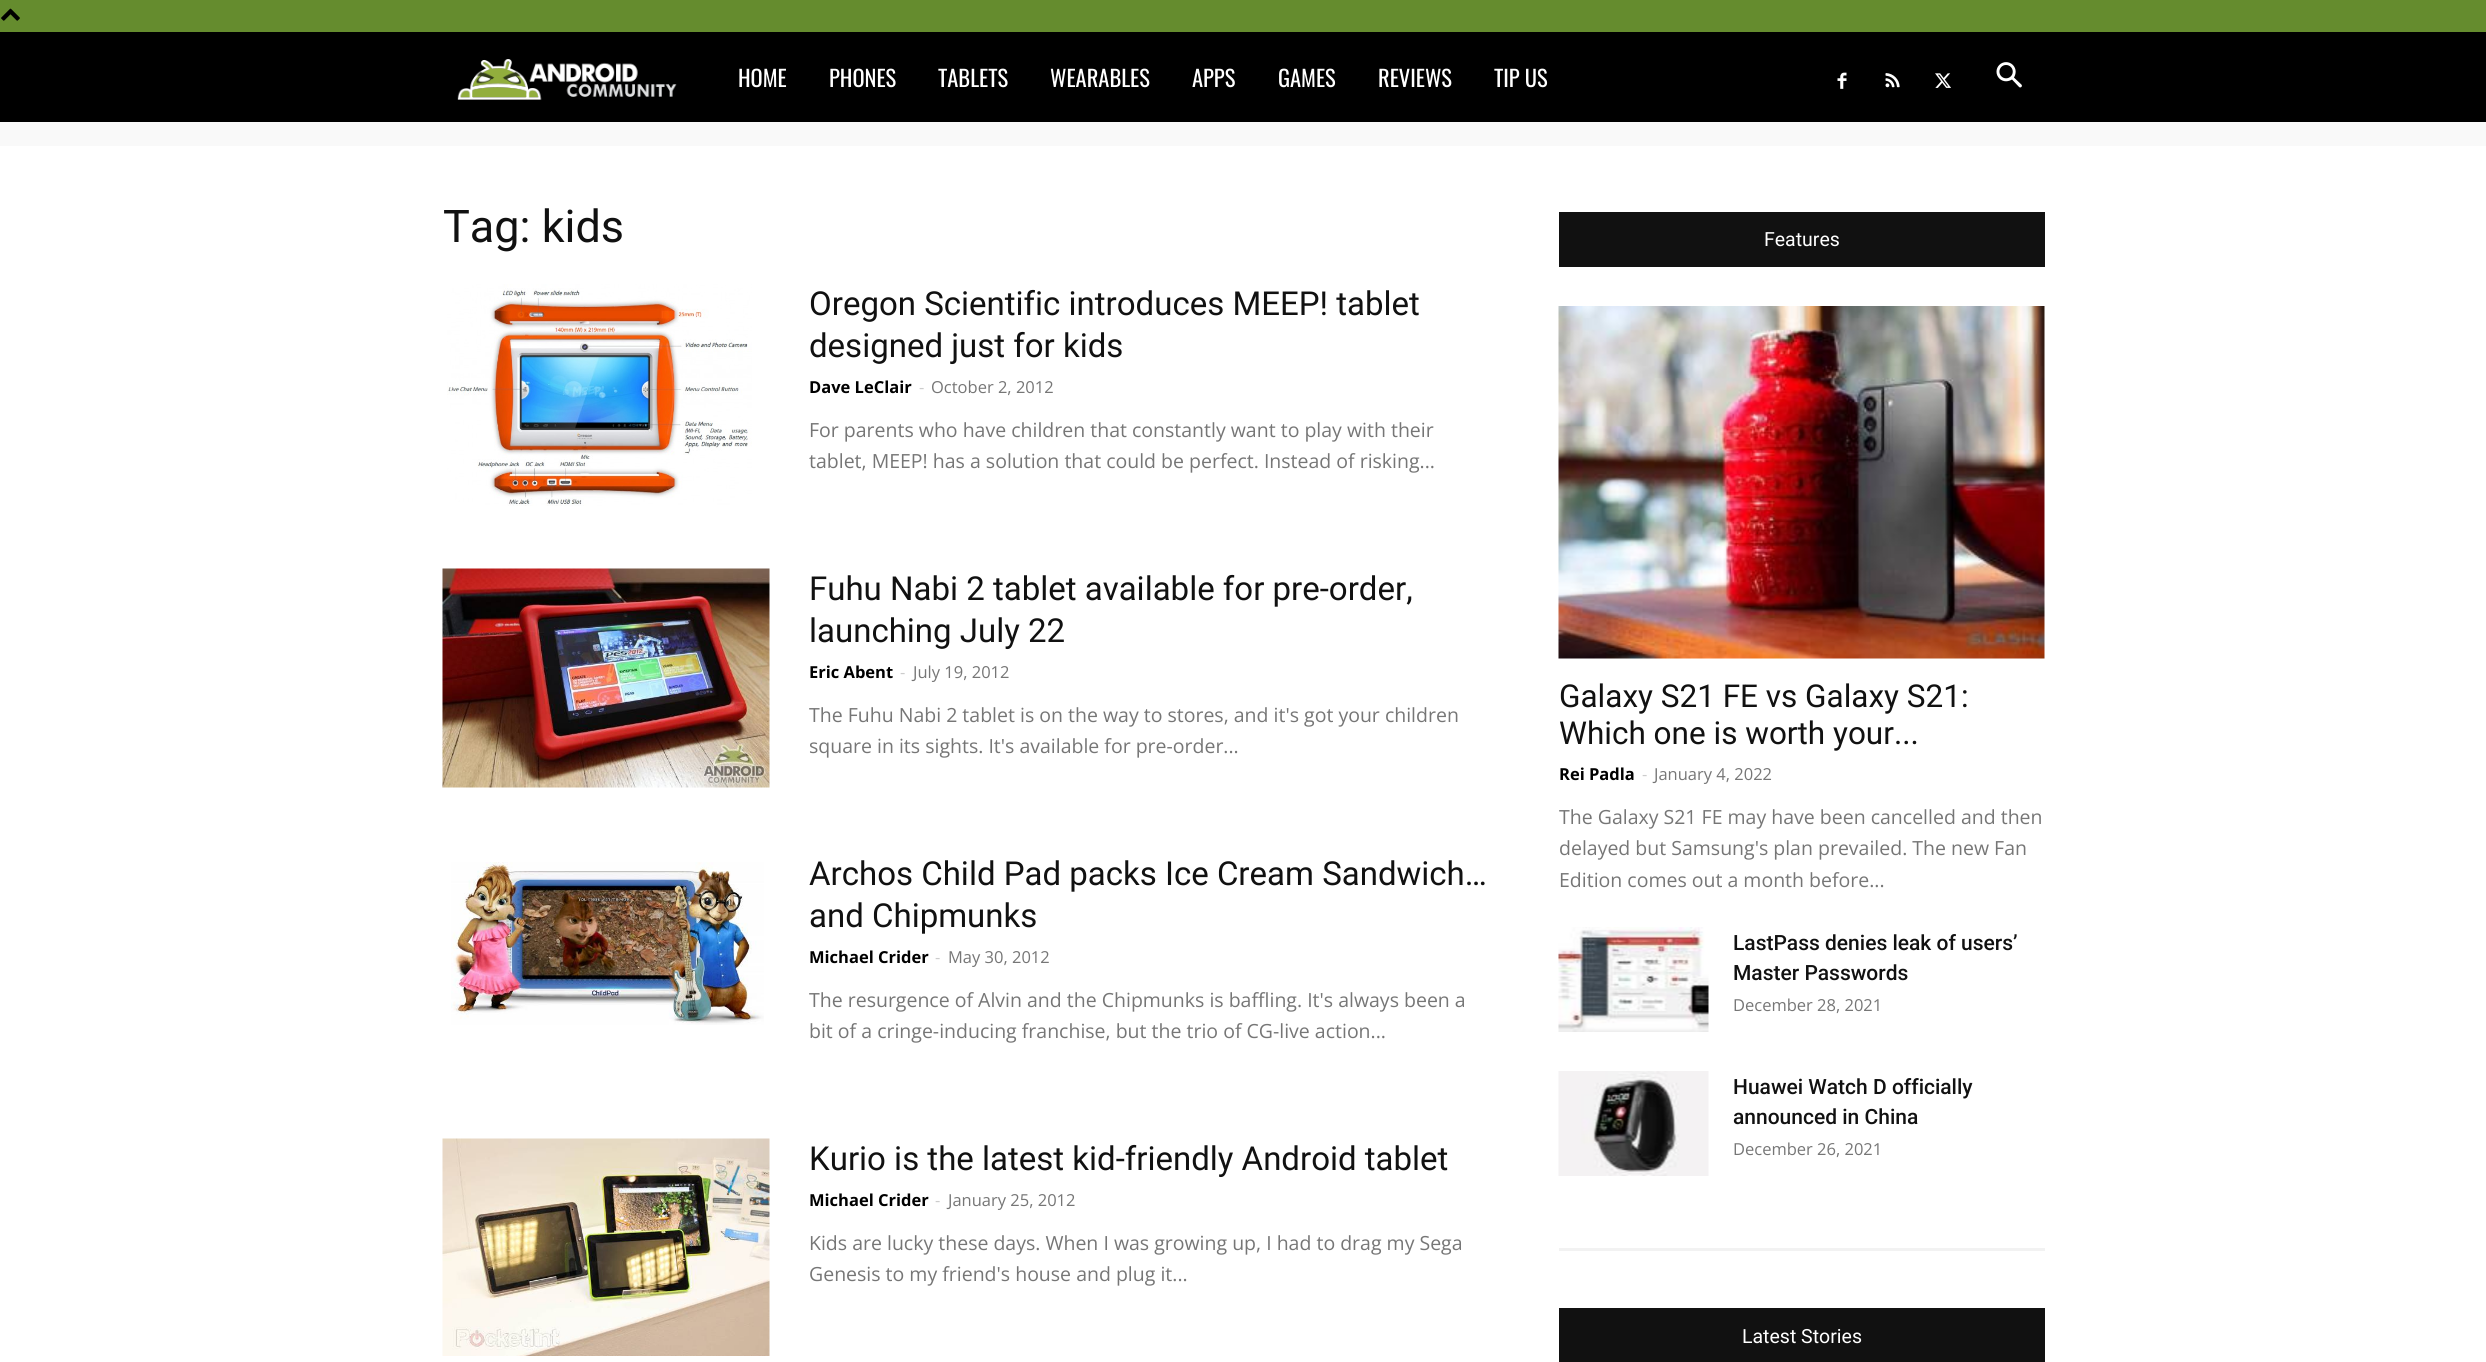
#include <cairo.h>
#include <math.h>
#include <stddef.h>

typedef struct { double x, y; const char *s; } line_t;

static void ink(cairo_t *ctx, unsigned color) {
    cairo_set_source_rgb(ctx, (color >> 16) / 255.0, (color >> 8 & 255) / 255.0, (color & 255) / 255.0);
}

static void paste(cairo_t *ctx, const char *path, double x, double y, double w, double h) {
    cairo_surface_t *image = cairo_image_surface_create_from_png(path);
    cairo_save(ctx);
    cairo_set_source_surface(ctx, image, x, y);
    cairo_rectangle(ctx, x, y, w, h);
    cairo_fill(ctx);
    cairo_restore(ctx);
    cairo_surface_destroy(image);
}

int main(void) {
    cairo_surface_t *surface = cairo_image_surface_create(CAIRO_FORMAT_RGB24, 2486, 1362);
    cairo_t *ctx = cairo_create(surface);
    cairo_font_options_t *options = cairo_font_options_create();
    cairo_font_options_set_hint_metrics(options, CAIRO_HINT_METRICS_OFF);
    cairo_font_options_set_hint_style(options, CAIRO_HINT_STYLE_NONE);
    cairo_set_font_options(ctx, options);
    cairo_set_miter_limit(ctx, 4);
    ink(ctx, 0xFFFFFF);
    cairo_paint(ctx);
    ink(ctx, 0x658C2E);
    cairo_rectangle(ctx, 0, 0, 2486, 32);
    cairo_fill(ctx);
    paste(ctx, "media/1.png", 1, 8, 19, 13);
    ink(ctx, 0x000000);
    cairo_rectangle(ctx, 0, 32, 2486, 90);
    cairo_fill(ctx);
    paste(ctx, "media/2.png", 457, 59, 220, 41);
    cairo_select_font_face(ctx, "Oswald", CAIRO_FONT_SLANT_NORMAL, CAIRO_FONT_WEIGHT_NORMAL);
    cairo_set_font_size(ctx, 22.5);
    ink(ctx, 0xFFFFFF);
    {
        static const line_t items[] = {
            {738, 87, "HOME"},
            {829, 87, "PHONES"},
            {938, 87, "TABLETS"},
            {1050, 87, "WEARABLES"},
            {1192, 87, "APPS"},
            {1278, 87, "GAMES"},
            {1378, 87, "REVIEWS"},
            {1494, 87, "TIP US"},
        };
        for (size_t i = 0; i < sizeof items / sizeof *items; i++) {
            cairo_move_to(ctx, items[i].x, items[i].y);
            cairo_show_text(ctx, items[i].s);
        }
    }
    paste(ctx, "media/3.png", 1837, 72, 10, 17);
    paste(ctx, "media/4.png", 1885, 73, 15, 15);
    paste(ctx, "media/5.png", 1935, 73, 16, 15);
    paste(ctx, "media/6.png", 1996, 62, 26, 26);
    ink(ctx, 0xF9F9F9);
    cairo_rectangle(ctx, 0, 122, 2486, 24);
    cairo_fill(ctx);
    cairo_select_font_face(ctx, "Roboto", CAIRO_FONT_SLANT_NORMAL, CAIRO_FONT_WEIGHT_NORMAL);
    cairo_set_font_size(ctx, 45);
    ink(ctx, 0x111111);
    cairo_move_to(ctx, 443, 242);
    cairo_show_text(ctx, "Tag: kids");
    paste(ctx, "media/7.png", 447, 284, 305, 222);
    cairo_set_font_size(ctx, 33);
    cairo_move_to(ctx, 809, 315);
    cairo_show_text(ctx, "Oregon Scientific introduces MEEP! tablet");
    cairo_move_to(ctx, 809, 357);
    cairo_show_text(ctx, "designed just for kids");
    cairo_select_font_face(ctx, "Open Sans", CAIRO_FONT_SLANT_NORMAL, CAIRO_FONT_WEIGHT_BOLD);
    cairo_set_font_size(ctx, 16.5);
    ink(ctx, 0x000000);
    cairo_move_to(ctx, 809, 393);
    cairo_show_text(ctx, "Dave LeClair");
    cairo_select_font_face(ctx, "Open Sans", CAIRO_FONT_SLANT_NORMAL, CAIRO_FONT_WEIGHT_NORMAL);
    ink(ctx, 0xCCCCCC);
    cairo_move_to(ctx, 919, 393);
    cairo_show_text(ctx, "-");
    ink(ctx, 0x767676);
    cairo_move_to(ctx, 931, 393);
    cairo_show_text(ctx, "October 2, 2012");
    cairo_set_font_size(ctx, 19.5);
    cairo_move_to(ctx, 809, 437);
    cairo_show_text(ctx, "For parents who have children that constantly want to play with their");
    cairo_move_to(ctx, 809, 468);
    cairo_show_text(ctx, "tablet, MEEP! has a solution that could be perfect. Instead of risking...");
    paste(ctx, "media/8.png", 442, 568, 328, 220);
    cairo_select_font_face(ctx, "Roboto", CAIRO_FONT_SLANT_NORMAL, CAIRO_FONT_WEIGHT_NORMAL);
    cairo_set_font_size(ctx, 33);
    ink(ctx, 0x111111);
    cairo_move_to(ctx, 809, 600);
    cairo_show_text(ctx, "Fuhu Nabi 2 tablet available for pre-order,");
    cairo_move_to(ctx, 809, 642);
    cairo_show_text(ctx, "launching July 22");
    cairo_select_font_face(ctx, "Open Sans", CAIRO_FONT_SLANT_NORMAL, CAIRO_FONT_WEIGHT_BOLD);
    cairo_set_font_size(ctx, 16.5);
    ink(ctx, 0x000000);
    cairo_move_to(ctx, 809, 678);
    cairo_show_text(ctx, "Eric Abent");
    cairo_select_font_face(ctx, "Open Sans", CAIRO_FONT_SLANT_NORMAL, CAIRO_FONT_WEIGHT_NORMAL);
    ink(ctx, 0xCCCCCC);
    cairo_move_to(ctx, 900, 678);
    cairo_show_text(ctx, "-");
    ink(ctx, 0x767676);
    cairo_move_to(ctx, 913, 678);
    cairo_show_text(ctx, "July 19, 2012");
    cairo_set_font_size(ctx, 19.5);
    cairo_move_to(ctx, 809, 722);
    cairo_show_text(ctx, "The Fuhu Nabi 2 tablet is on the way to stores, and it's got your children");
    cairo_move_to(ctx, 809, 753);
    cairo_show_text(ctx, "square in its sights. It's available for pre-order...");
    paste(ctx, "media/9.png", 451, 862, 313, 163);
    cairo_select_font_face(ctx, "Roboto", CAIRO_FONT_SLANT_NORMAL, CAIRO_FONT_WEIGHT_NORMAL);
    cairo_set_font_size(ctx, 33);
    ink(ctx, 0x111111);
    cairo_move_to(ctx, 809, 885);
    cairo_show_text(ctx, "Archos Child Pad packs Ice Cream Sandwich…");
    cairo_move_to(ctx, 809, 927);
    cairo_show_text(ctx, "and Chipmunks");
    cairo_select_font_face(ctx, "Open Sans", CAIRO_FONT_SLANT_NORMAL, CAIRO_FONT_WEIGHT_BOLD);
    cairo_set_font_size(ctx, 16.5);
    ink(ctx, 0x000000);
    cairo_move_to(ctx, 809, 963);
    cairo_show_text(ctx, "Michael Crider");
    cairo_select_font_face(ctx, "Open Sans", CAIRO_FONT_SLANT_NORMAL, CAIRO_FONT_WEIGHT_NORMAL);
    ink(ctx, 0xCCCCCC);
    cairo_move_to(ctx, 935, 963);
    cairo_show_text(ctx, "-");
    ink(ctx, 0x767676);
    cairo_move_to(ctx, 948, 963);
    cairo_show_text(ctx, "May 30, 2012");
    cairo_set_font_size(ctx, 19.5);
    cairo_move_to(ctx, 809, 1007);
    cairo_show_text(ctx, "The resurgence of Alvin and the Chipmunks is baffling. It's always been a");
    cairo_move_to(ctx, 809, 1038);
    cairo_show_text(ctx, "bit of a cringe-inducing franchise, but the trio of CG-live action...");
    paste(ctx, "media/10.png", 442, 1138, 328, 218);
    cairo_select_font_face(ctx, "Roboto", CAIRO_FONT_SLANT_NORMAL, CAIRO_FONT_WEIGHT_NORMAL);
    cairo_set_font_size(ctx, 33);
    ink(ctx, 0x111111);
    cairo_move_to(ctx, 809, 1170);
    cairo_show_text(ctx, "Kurio is the latest kid-friendly Android tablet");
    cairo_select_font_face(ctx, "Open Sans", CAIRO_FONT_SLANT_NORMAL, CAIRO_FONT_WEIGHT_BOLD);
    cairo_set_font_size(ctx, 16.5);
    ink(ctx, 0x000000);
    cairo_move_to(ctx, 809, 1206);
    cairo_show_text(ctx, "Michael Crider");
    cairo_select_font_face(ctx, "Open Sans", CAIRO_FONT_SLANT_NORMAL, CAIRO_FONT_WEIGHT_NORMAL);
    ink(ctx, 0xCCCCCC);
    cairo_move_to(ctx, 935, 1206);
    cairo_show_text(ctx, "-");
    ink(ctx, 0x767676);
    cairo_move_to(ctx, 948, 1206);
    cairo_show_text(ctx, "January 25, 2012");
    cairo_set_font_size(ctx, 19.5);
    cairo_move_to(ctx, 809, 1250);
    cairo_show_text(ctx, "Kids are lucky these days. When I was growing up, I had to drag my Sega");
    cairo_move_to(ctx, 809, 1281);
    cairo_show_text(ctx, "Genesis to my friend's house and plug it...");
    ink(ctx, 0x111111);
    cairo_rectangle(ctx, 1559, 212, 486, 55);
    cairo_fill(ctx);
    cairo_select_font_face(ctx, "Roboto", CAIRO_FONT_SLANT_NORMAL, CAIRO_FONT_WEIGHT_NORMAL);
    ink(ctx, 0xFFFFFF);
    cairo_move_to(ctx, 1764, 246);
    cairo_show_text(ctx, "Features");
    paste(ctx, "media/11.png", 1558, 306, 487, 353);
    cairo_set_font_size(ctx, 31.5);
    ink(ctx, 0x111111);
    cairo_move_to(ctx, 1559, 707);
    cairo_show_text(ctx, "Galaxy S21 FE vs Galaxy S21:");
    cairo_move_to(ctx, 1559, 744);
    cairo_show_text(ctx, "Which one is worth your...");
    cairo_select_font_face(ctx, "Open Sans", CAIRO_FONT_SLANT_NORMAL, CAIRO_FONT_WEIGHT_BOLD);
    cairo_set_font_size(ctx, 16.5);
    ink(ctx, 0x000000);
    cairo_move_to(ctx, 1559, 780);
    cairo_show_text(ctx, "Rei Padla");
    cairo_select_font_face(ctx, "Open Sans", CAIRO_FONT_SLANT_NORMAL, CAIRO_FONT_WEIGHT_NORMAL);
    ink(ctx, 0xCCCCCC);
    cairo_move_to(ctx, 1642, 780);
    cairo_show_text(ctx, "-");
    ink(ctx, 0x767676);
    cairo_move_to(ctx, 1654, 780);
    cairo_show_text(ctx, "January 4, 2022");
    cairo_set_font_size(ctx, 19.5);
    {
        static const line_t items[] = {
            {1559, 824, "The Galaxy S21 FE may have been cancelled and then"},
            {1559, 855, "delayed but Samsung's plan prevailed. The new Fan"},
            {1559, 887, "Edition comes out a month before..."},
        };
        for (size_t i = 0; i < sizeof items / sizeof *items; i++) {
            cairo_move_to(ctx, items[i].x, items[i].y);
            cairo_show_text(ctx, items[i].s);
        }
    }
    paste(ctx, "media/12.png", 1558, 927, 151, 105);
    cairo_select_font_face(ctx, "Roboto Medium", CAIRO_FONT_SLANT_NORMAL, CAIRO_FONT_WEIGHT_NORMAL);
    cairo_set_font_size(ctx, 21);
    ink(ctx, 0x111111);
    cairo_move_to(ctx, 1733, 950);
    cairo_show_text(ctx, "LastPass denies leak of users’");
    cairo_move_to(ctx, 1733, 980);
    cairo_show_text(ctx, "Master Passwords");
    cairo_select_font_face(ctx, "Open Sans", CAIRO_FONT_SLANT_NORMAL, CAIRO_FONT_WEIGHT_NORMAL);
    cairo_set_font_size(ctx, 16.5);
    ink(ctx, 0x767676);
    cairo_move_to(ctx, 1733, 1011);
    cairo_show_text(ctx, "December 28, 2021");
    paste(ctx, "media/13.png", 1558, 1071, 151, 105);
    cairo_select_font_face(ctx, "Roboto Medium", CAIRO_FONT_SLANT_NORMAL, CAIRO_FONT_WEIGHT_NORMAL);
    cairo_set_font_size(ctx, 21);
    ink(ctx, 0x111111);
    cairo_move_to(ctx, 1733, 1094);
    cairo_show_text(ctx, "Huawei Watch D officially");
    cairo_move_to(ctx, 1733, 1124);
    cairo_show_text(ctx, "announced in China");
    cairo_select_font_face(ctx, "Open Sans", CAIRO_FONT_SLANT_NORMAL, CAIRO_FONT_WEIGHT_NORMAL);
    cairo_set_font_size(ctx, 16.5);
    ink(ctx, 0x767676);
    cairo_move_to(ctx, 1733, 1155);
    cairo_show_text(ctx, "December 26, 2021");
    ink(ctx, 0xF2F2F2);
    cairo_rectangle(ctx, 1559, 1248, 486, 3);
    cairo_fill(ctx);
    ink(ctx, 0x111111);
    cairo_rectangle(ctx, 1559, 1308, 486, 54);
    cairo_fill(ctx);
    cairo_select_font_face(ctx, "Roboto", CAIRO_FONT_SLANT_NORMAL, CAIRO_FONT_WEIGHT_NORMAL);
    cairo_set_font_size(ctx, 19.5);
    ink(ctx, 0xFFFFFF);
    cairo_move_to(ctx, 1742, 1343);
    cairo_show_text(ctx, "Latest Stories");
    cairo_surface_write_to_png(surface, "image.png");
    cairo_font_options_destroy(options);
    cairo_destroy(ctx);
    cairo_surface_destroy(surface);
    return 0;
}
